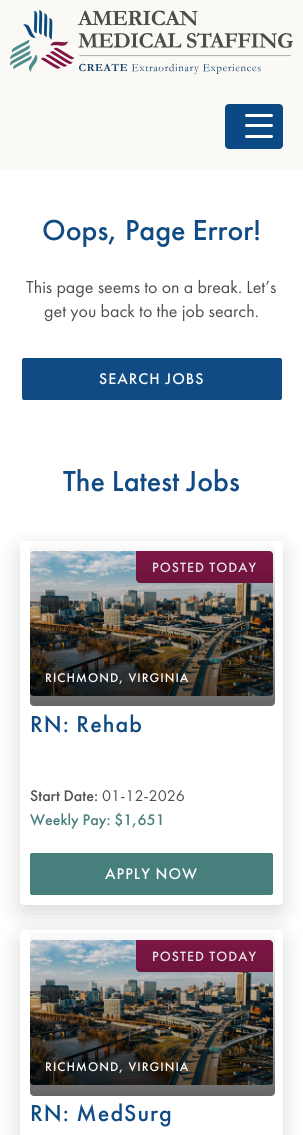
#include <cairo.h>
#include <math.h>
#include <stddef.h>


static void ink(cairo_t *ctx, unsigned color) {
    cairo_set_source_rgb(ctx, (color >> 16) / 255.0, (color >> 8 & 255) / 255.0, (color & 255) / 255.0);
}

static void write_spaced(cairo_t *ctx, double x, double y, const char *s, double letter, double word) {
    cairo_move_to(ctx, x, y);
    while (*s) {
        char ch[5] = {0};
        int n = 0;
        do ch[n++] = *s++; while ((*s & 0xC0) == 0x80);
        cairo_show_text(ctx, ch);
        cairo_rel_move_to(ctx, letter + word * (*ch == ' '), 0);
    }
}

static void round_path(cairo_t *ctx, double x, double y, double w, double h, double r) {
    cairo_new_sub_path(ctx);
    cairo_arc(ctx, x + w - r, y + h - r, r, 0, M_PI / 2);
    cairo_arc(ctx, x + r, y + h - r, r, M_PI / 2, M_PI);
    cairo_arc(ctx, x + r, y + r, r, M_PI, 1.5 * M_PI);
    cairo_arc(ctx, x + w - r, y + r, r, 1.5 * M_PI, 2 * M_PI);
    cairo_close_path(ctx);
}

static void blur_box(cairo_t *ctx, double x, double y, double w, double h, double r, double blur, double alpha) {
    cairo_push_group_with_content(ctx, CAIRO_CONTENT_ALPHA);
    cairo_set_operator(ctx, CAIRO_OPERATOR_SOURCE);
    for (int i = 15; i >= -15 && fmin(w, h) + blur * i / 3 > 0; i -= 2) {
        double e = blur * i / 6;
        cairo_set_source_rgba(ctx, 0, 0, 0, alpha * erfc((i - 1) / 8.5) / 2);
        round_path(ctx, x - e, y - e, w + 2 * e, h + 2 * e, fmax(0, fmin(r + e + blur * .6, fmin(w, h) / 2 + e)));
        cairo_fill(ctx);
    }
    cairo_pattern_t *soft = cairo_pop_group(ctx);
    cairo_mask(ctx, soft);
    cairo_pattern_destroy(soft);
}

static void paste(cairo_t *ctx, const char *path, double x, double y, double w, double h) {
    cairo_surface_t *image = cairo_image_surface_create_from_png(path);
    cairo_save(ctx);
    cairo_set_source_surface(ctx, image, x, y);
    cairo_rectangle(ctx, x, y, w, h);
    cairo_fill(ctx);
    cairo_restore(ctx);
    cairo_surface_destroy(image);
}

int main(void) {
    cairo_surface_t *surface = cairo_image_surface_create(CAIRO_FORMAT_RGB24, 303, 1135);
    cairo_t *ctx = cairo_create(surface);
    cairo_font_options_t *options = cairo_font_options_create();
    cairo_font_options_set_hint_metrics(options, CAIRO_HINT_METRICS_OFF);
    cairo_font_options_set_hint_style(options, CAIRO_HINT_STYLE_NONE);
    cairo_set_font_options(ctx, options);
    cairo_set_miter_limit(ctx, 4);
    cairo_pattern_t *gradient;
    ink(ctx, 0xFFFFFF);
    cairo_paint(ctx);
    ink(ctx, 0xFBF9F5);
    cairo_rectangle(ctx, 0, 0, 303, 169);
    cairo_fill(ctx);
    paste(ctx, "media/1.png", 10, 10, 283, 64);
    ink(ctx, 0x0A4983);
    round_path(ctx, 225, 104, 58, 45, 4);
    cairo_fill(ctx);
    ink(ctx, 0xFFFFFF);
    round_path(ctx, 245, 124, 28, 3, 1.5);
    cairo_fill(ctx);
    round_path(ctx, 245, 114, 28, 3, 1.5);
    cairo_fill(ctx);
    round_path(ctx, 245, 135, 28, 3, 1.5);
    cairo_fill(ctx);
    cairo_select_font_face(ctx, "Futura PT Medium", CAIRO_FONT_SLANT_NORMAL, CAIRO_FONT_WEIGHT_NORMAL);
    cairo_set_font_size(ctx, 30);
    ink(ctx, 0x104B83);
    cairo_move_to(ctx, 42, 240);
    cairo_show_text(ctx, "Oops, Page Error!");
    cairo_select_font_face(ctx, "Futura PT", CAIRO_FONT_SLANT_NORMAL, CAIRO_FONT_WEIGHT_NORMAL);
    cairo_set_font_size(ctx, 18);
    ink(ctx, 0x4E504D);
    cairo_move_to(ctx, 26, 293);
    cairo_show_text(ctx, "This page seems to on a break. Let’s");
    cairo_move_to(ctx, 44, 317);
    cairo_show_text(ctx, "get you back to the job search.");
    ink(ctx, 0x104B83);
    round_path(ctx, 22, 358, 260, 42, 2);
    cairo_fill(ctx);
    cairo_select_font_face(ctx, "Futura PT Medium", CAIRO_FONT_SLANT_NORMAL, CAIRO_FONT_WEIGHT_NORMAL);
    cairo_set_font_size(ctx, 16);
    ink(ctx, 0xFFFFFF);
    write_spaced(ctx, 99, 384, "SEARCH JOBS", 1, 0);
    cairo_set_font_size(ctx, 30);
    ink(ctx, 0x104B83);
    cairo_move_to(ctx, 63, 491);
    cairo_show_text(ctx, "The Latest Jobs");
    ink(ctx, 0x000000);
    blur_box(ctx, 20, 549, 263, 364, 4, 12, 0.15);
    ink(ctx, 0xFFFFFF);
    round_path(ctx, 20, 541, 263, 364, 4);
    cairo_fill(ctx);
    paste(ctx, "media/2.png", 30, 551, 243, 145);
    ink(ctx, 0x821747);
    cairo_new_path(ctx);
    cairo_move_to(ctx, 136, 551);
    cairo_line_to(ctx, 269, 551);
    cairo_curve_to(ctx, 271, 551, 273, 553, 273, 555);
    cairo_line_to(ctx, 273, 583);
    cairo_line_to(ctx, 140, 583);
    cairo_curve_to(ctx, 138, 583, 136, 581, 136, 579);
    cairo_close_path(ctx);
    cairo_fill(ctx);
    cairo_set_font_size(ctx, 14);
    ink(ctx, 0xFFFFFF);
    write_spaced(ctx, 152, 572, "POSTED TODAY", 1, 0);
    gradient = cairo_pattern_create_linear(153, 541, 153, 706);
    cairo_pattern_add_color_stop_rgba(gradient, 0, 0, 0, 0, 0);
    cairo_pattern_add_color_stop_rgba(gradient, 1, 0, 0, 0, 0.6);
    cairo_set_source(ctx, gradient);
    cairo_pattern_destroy(gradient);
    round_path(ctx, 30, 541, 245, 165, 4);
    cairo_fill(ctx);
    cairo_set_font_size(ctx, 13);
    ink(ctx, 0xFFFFFF);
    write_spaced(ctx, 45, 682, "RICHMOND, VIRGINIA", 1, 0);
    cairo_set_font_size(ctx, 24);
    ink(ctx, 0x104B83);
    write_spaced(ctx, 30, 732, "RN: Rehab", 1, 0);
    cairo_set_font_size(ctx, 16);
    ink(ctx, 0x4E504D);
    cairo_move_to(ctx, 30, 801);
    cairo_show_text(ctx, "Start Date:");
    cairo_select_font_face(ctx, "Futura PT", CAIRO_FONT_SLANT_NORMAL, CAIRO_FONT_WEIGHT_NORMAL);
    cairo_move_to(ctx, 102, 801);
    cairo_show_text(ctx, "01-12-2026");
    cairo_select_font_face(ctx, "Futura PT Medium", CAIRO_FONT_SLANT_NORMAL, CAIRO_FONT_WEIGHT_NORMAL);
    ink(ctx, 0x477F7D);
    cairo_move_to(ctx, 30, 825);
    cairo_show_text(ctx, "Weekly Pay: $1,651");
    round_path(ctx, 30, 853, 243, 42, 2);
    cairo_fill(ctx);
    ink(ctx, 0xFFFFFF);
    write_spaced(ctx, 105, 879, "APPLY NOW", 1, 0);
    ink(ctx, 0x000000);
    blur_box(ctx, 20, 938, 263, 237, 4, 12, 0.15);
    ink(ctx, 0xFFFFFF);
    round_path(ctx, 20, 930, 263, 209, 4);
    cairo_fill(ctx);
    paste(ctx, "media/3.png", 30, 940, 243, 145);
    ink(ctx, 0x821747);
    cairo_new_path(ctx);
    cairo_move_to(ctx, 136, 940);
    cairo_line_to(ctx, 269, 940);
    cairo_curve_to(ctx, 271, 940, 273, 942, 273, 944);
    cairo_line_to(ctx, 273, 972);
    cairo_line_to(ctx, 140, 972);
    cairo_curve_to(ctx, 138, 972, 136, 970, 136, 968);
    cairo_close_path(ctx);
    cairo_fill(ctx);
    cairo_set_font_size(ctx, 14);
    ink(ctx, 0xFFFFFF);
    write_spaced(ctx, 152, 961, "POSTED TODAY", 1, 0);
    gradient = cairo_pattern_create_linear(153, 930, 153, 1096);
    cairo_pattern_add_color_stop_rgba(gradient, 0, 0, 0, 0, 0);
    cairo_pattern_add_color_stop_rgba(gradient, 1, 0, 0, 0, 0.6);
    cairo_set_source(ctx, gradient);
    cairo_pattern_destroy(gradient);
    round_path(ctx, 30, 930, 245, 166, 4);
    cairo_fill(ctx);
    cairo_set_font_size(ctx, 13);
    ink(ctx, 0xFFFFFF);
    write_spaced(ctx, 45, 1071, "RICHMOND, VIRGINIA", 1, 0);
    cairo_set_font_size(ctx, 24);
    ink(ctx, 0x104B83);
    write_spaced(ctx, 30, 1121, "RN: MedSurg", 1, 0);
    cairo_surface_write_to_png(surface, "image.png");
    cairo_font_options_destroy(options);
    cairo_destroy(ctx);
    cairo_surface_destroy(surface);
    return 0;
}
